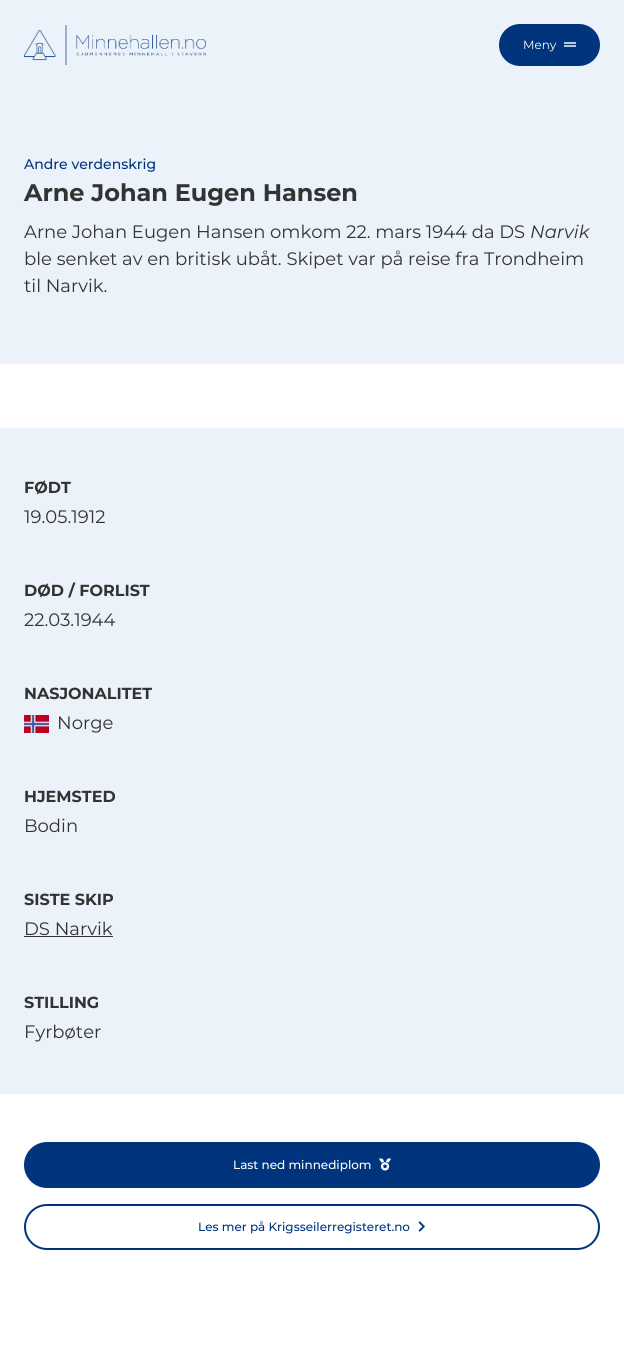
#include <cairo.h>
#include <math.h>
#include <stddef.h>


static void ink(cairo_t *ctx, unsigned color) {
    cairo_set_source_rgb(ctx, (color >> 16) / 255.0, (color >> 8 & 255) / 255.0, (color & 255) / 255.0);
}

static void round_path(cairo_t *ctx, double x, double y, double w, double h, double r) {
    cairo_new_sub_path(ctx);
    cairo_arc(ctx, x + w - r, y + h - r, r, 0, M_PI / 2);
    cairo_arc(ctx, x + r, y + h - r, r, M_PI / 2, M_PI);
    cairo_arc(ctx, x + r, y + r, r, M_PI, 1.5 * M_PI);
    cairo_arc(ctx, x + w - r, y + r, r, 1.5 * M_PI, 2 * M_PI);
    cairo_close_path(ctx);
}

static void paste(cairo_t *ctx, const char *path, double x, double y, double w, double h) {
    cairo_surface_t *image = cairo_image_surface_create_from_png(path);
    cairo_save(ctx);
    cairo_set_source_surface(ctx, image, x, y);
    cairo_rectangle(ctx, x, y, w, h);
    cairo_fill(ctx);
    cairo_restore(ctx);
    cairo_surface_destroy(image);
}

int main(void) {
    cairo_surface_t *surface = cairo_image_surface_create(CAIRO_FORMAT_RGB24, 624, 1357);
    cairo_t *ctx = cairo_create(surface);
    cairo_font_options_t *options = cairo_font_options_create();
    cairo_font_options_set_hint_metrics(options, CAIRO_HINT_METRICS_OFF);
    cairo_font_options_set_hint_style(options, CAIRO_HINT_STYLE_NONE);
    cairo_set_font_options(ctx, options);
    cairo_set_miter_limit(ctx, 4);
    ink(ctx, 0xFFFFFF);
    cairo_paint(ctx);
    ink(ctx, 0xECF2F9);
    cairo_rectangle(ctx, 0, 0, 624, 364);
    cairo_fill(ctx);
    paste(ctx, "media/1.png", 24, 25, 182, 40);
    ink(ctx, 0x00357E);
    round_path(ctx, 499, 24, 101, 42, 21);
    cairo_fill(ctx);
    cairo_select_font_face(ctx, "Montserrat", CAIRO_FONT_SLANT_NORMAL, CAIRO_FONT_WEIGHT_NORMAL);
    cairo_set_font_size(ctx, 12);
    ink(ctx, 0xFFFFFF);
    cairo_move_to(ctx, 523, 49);
    cairo_show_text(ctx, "Meny");
    paste(ctx, "media/2.png", 564, 42, 12, 5);
    cairo_select_font_face(ctx, "Montserrat Medium", CAIRO_FONT_SLANT_NORMAL, CAIRO_FONT_WEIGHT_NORMAL);
    cairo_set_font_size(ctx, 14);
    ink(ctx, 0x00357E);
    cairo_move_to(ctx, 24, 169);
    cairo_show_text(ctx, "Andre verdenskrig");
    cairo_select_font_face(ctx, "Montserrat", CAIRO_FONT_SLANT_NORMAL, CAIRO_FONT_WEIGHT_BOLD);
    cairo_set_font_size(ctx, 24);
    ink(ctx, 0x333333);
    cairo_move_to(ctx, 24, 201);
    cairo_show_text(ctx, "Arne Johan Eugen Hansen");
    cairo_select_font_face(ctx, "Montserrat", CAIRO_FONT_SLANT_NORMAL, CAIRO_FONT_WEIGHT_NORMAL);
    cairo_set_font_size(ctx, 18);
    cairo_move_to(ctx, 24, 238);
    cairo_show_text(ctx, "Arne Johan Eugen Hansen omkom 22. mars 1944 da DS");
    cairo_select_font_face(ctx, "Montserrat", CAIRO_FONT_SLANT_ITALIC, CAIRO_FONT_WEIGHT_NORMAL);
    cairo_move_to(ctx, 530, 238);
    cairo_show_text(ctx, "Narvik");
    cairo_select_font_face(ctx, "Montserrat", CAIRO_FONT_SLANT_NORMAL, CAIRO_FONT_WEIGHT_NORMAL);
    cairo_move_to(ctx, 24, 265);
    cairo_show_text(ctx, "ble senket av en britisk ubåt. Skipet var på reise fra Trondheim");
    cairo_move_to(ctx, 24, 292);
    cairo_show_text(ctx, "til Narvik.");
    ink(ctx, 0xECF2F9);
    cairo_rectangle(ctx, 0, 428, 624, 666);
    cairo_fill(ctx);
    cairo_select_font_face(ctx, "Montserrat", CAIRO_FONT_SLANT_NORMAL, CAIRO_FONT_WEIGHT_BOLD);
    cairo_set_font_size(ctx, 16);
    ink(ctx, 0x333333);
    cairo_move_to(ctx, 24, 493);
    cairo_show_text(ctx, "FØDT");
    cairo_select_font_face(ctx, "Montserrat", CAIRO_FONT_SLANT_NORMAL, CAIRO_FONT_WEIGHT_NORMAL);
    cairo_set_font_size(ctx, 18);
    cairo_move_to(ctx, 24, 523);
    cairo_show_text(ctx, "19.05.1912");
    cairo_select_font_face(ctx, "Montserrat", CAIRO_FONT_SLANT_NORMAL, CAIRO_FONT_WEIGHT_BOLD);
    cairo_set_font_size(ctx, 16);
    cairo_move_to(ctx, 24, 596);
    cairo_show_text(ctx, "DØD / FORLIST");
    cairo_select_font_face(ctx, "Montserrat", CAIRO_FONT_SLANT_NORMAL, CAIRO_FONT_WEIGHT_NORMAL);
    cairo_set_font_size(ctx, 18);
    cairo_move_to(ctx, 24, 626);
    cairo_show_text(ctx, "22.03.1944");
    cairo_select_font_face(ctx, "Montserrat", CAIRO_FONT_SLANT_NORMAL, CAIRO_FONT_WEIGHT_BOLD);
    cairo_set_font_size(ctx, 16);
    cairo_move_to(ctx, 24, 699);
    cairo_show_text(ctx, "NASJONALITET");
    paste(ctx, "media/3.png", 24, 715, 25, 18);
    cairo_select_font_face(ctx, "Montserrat", CAIRO_FONT_SLANT_NORMAL, CAIRO_FONT_WEIGHT_NORMAL);
    cairo_set_font_size(ctx, 18);
    cairo_move_to(ctx, 57, 729);
    cairo_show_text(ctx, "Norge");
    cairo_select_font_face(ctx, "Montserrat", CAIRO_FONT_SLANT_NORMAL, CAIRO_FONT_WEIGHT_BOLD);
    cairo_set_font_size(ctx, 16);
    cairo_move_to(ctx, 24, 802);
    cairo_show_text(ctx, "HJEMSTED");
    cairo_select_font_face(ctx, "Montserrat", CAIRO_FONT_SLANT_NORMAL, CAIRO_FONT_WEIGHT_NORMAL);
    cairo_set_font_size(ctx, 18);
    cairo_move_to(ctx, 24, 832);
    cairo_show_text(ctx, "Bodin");
    cairo_select_font_face(ctx, "Montserrat", CAIRO_FONT_SLANT_NORMAL, CAIRO_FONT_WEIGHT_BOLD);
    cairo_set_font_size(ctx, 16);
    cairo_move_to(ctx, 24, 905);
    cairo_show_text(ctx, "SISTE SKIP");
    cairo_select_font_face(ctx, "Montserrat", CAIRO_FONT_SLANT_NORMAL, CAIRO_FONT_WEIGHT_NORMAL);
    cairo_set_font_size(ctx, 18);
    cairo_move_to(ctx, 24, 935);
    cairo_show_text(ctx, "DS Narvik");
    cairo_rectangle(ctx, 24, 936, 89, 1);
    cairo_fill(ctx);
    cairo_select_font_face(ctx, "Montserrat", CAIRO_FONT_SLANT_NORMAL, CAIRO_FONT_WEIGHT_BOLD);
    cairo_set_font_size(ctx, 16);
    cairo_move_to(ctx, 24, 1008);
    cairo_show_text(ctx, "STILLING");
    cairo_select_font_face(ctx, "Montserrat", CAIRO_FONT_SLANT_NORMAL, CAIRO_FONT_WEIGHT_NORMAL);
    cairo_set_font_size(ctx, 18);
    cairo_move_to(ctx, 24, 1038);
    cairo_show_text(ctx, "Fyrbøter");
    ink(ctx, 0x00357E);
    round_path(ctx, 25, 1143, 574, 44, 22);
    cairo_fill_preserve(ctx);
    cairo_stroke(ctx);
    cairo_select_font_face(ctx, "Montserrat Medium", CAIRO_FONT_SLANT_NORMAL, CAIRO_FONT_WEIGHT_NORMAL);
    cairo_set_font_size(ctx, 12);
    ink(ctx, 0xFFFFFF);
    cairo_move_to(ctx, 233, 1169);
    cairo_show_text(ctx, "Last ned minnediplom");
    paste(ctx, "media/4.png", 379, 1158, 12, 13);
    round_path(ctx, 25, 1205, 574, 44, 22);
    ink(ctx, 0x00357E);
    cairo_stroke(ctx);
    cairo_move_to(ctx, 198, 1231);
    cairo_show_text(ctx, "Les mer på Krigsseilerregisteret.no");
    paste(ctx, "media/5.png", 418, 1221, 7, 11);
    cairo_surface_write_to_png(surface, "image.png");
    cairo_font_options_destroy(options);
    cairo_destroy(ctx);
    cairo_surface_destroy(surface);
    return 0;
}
